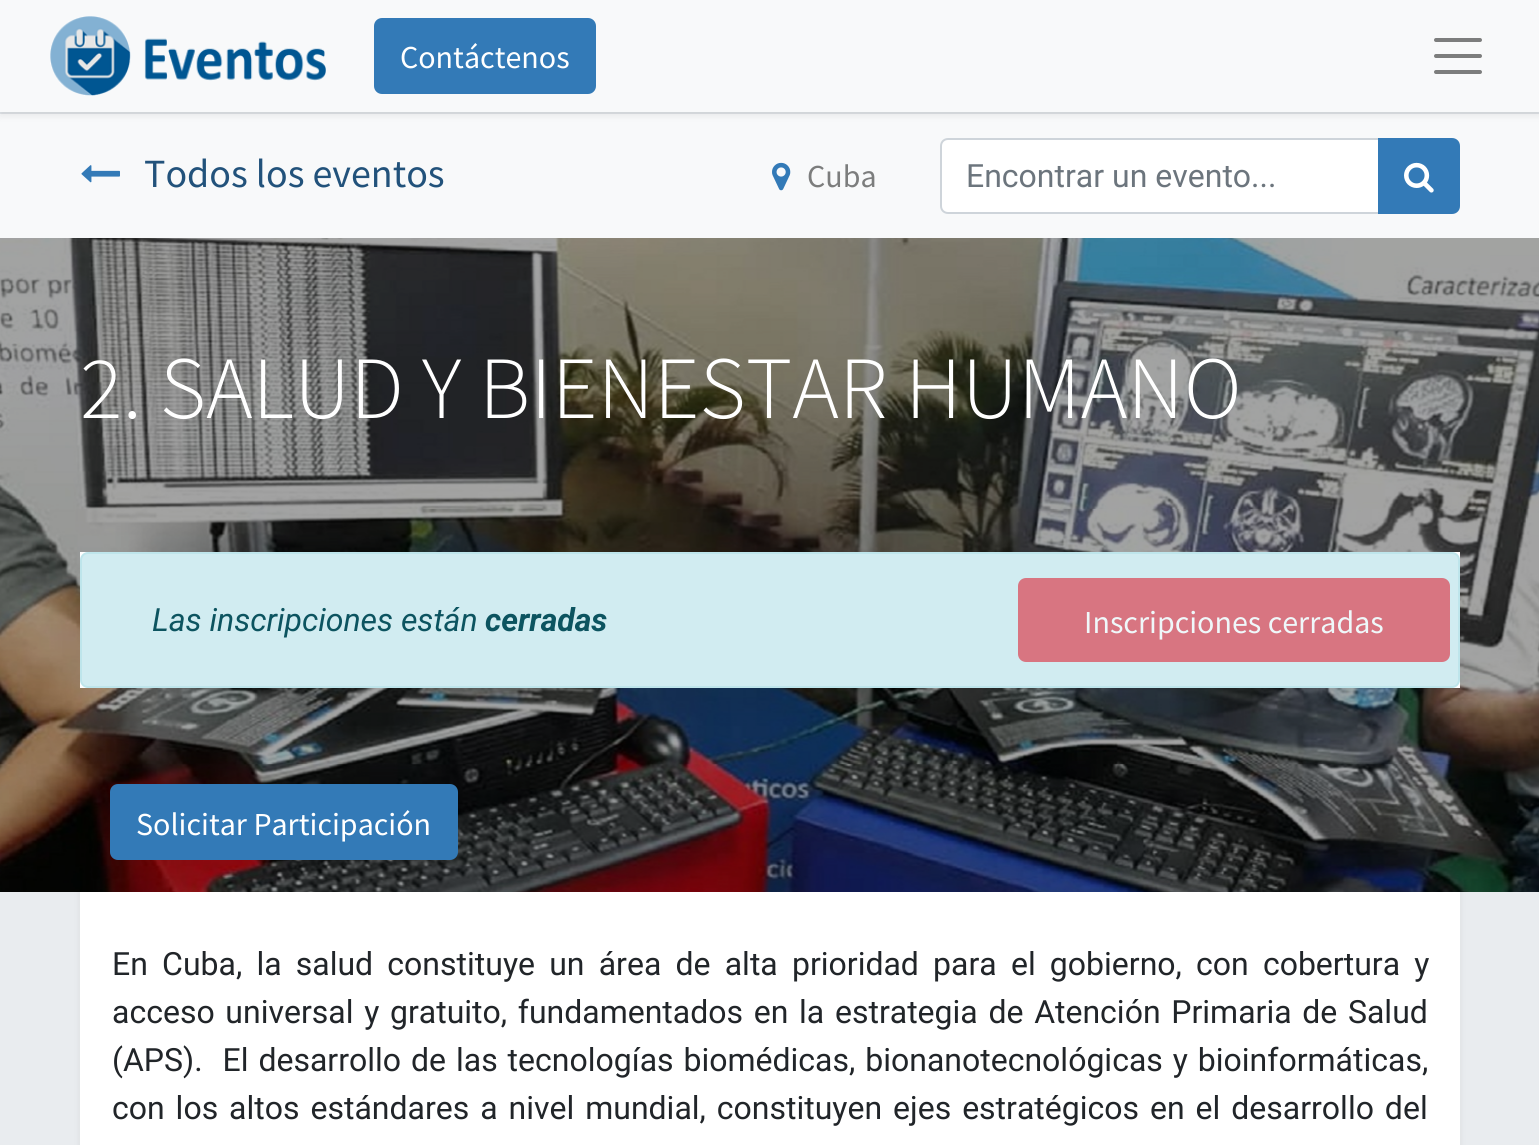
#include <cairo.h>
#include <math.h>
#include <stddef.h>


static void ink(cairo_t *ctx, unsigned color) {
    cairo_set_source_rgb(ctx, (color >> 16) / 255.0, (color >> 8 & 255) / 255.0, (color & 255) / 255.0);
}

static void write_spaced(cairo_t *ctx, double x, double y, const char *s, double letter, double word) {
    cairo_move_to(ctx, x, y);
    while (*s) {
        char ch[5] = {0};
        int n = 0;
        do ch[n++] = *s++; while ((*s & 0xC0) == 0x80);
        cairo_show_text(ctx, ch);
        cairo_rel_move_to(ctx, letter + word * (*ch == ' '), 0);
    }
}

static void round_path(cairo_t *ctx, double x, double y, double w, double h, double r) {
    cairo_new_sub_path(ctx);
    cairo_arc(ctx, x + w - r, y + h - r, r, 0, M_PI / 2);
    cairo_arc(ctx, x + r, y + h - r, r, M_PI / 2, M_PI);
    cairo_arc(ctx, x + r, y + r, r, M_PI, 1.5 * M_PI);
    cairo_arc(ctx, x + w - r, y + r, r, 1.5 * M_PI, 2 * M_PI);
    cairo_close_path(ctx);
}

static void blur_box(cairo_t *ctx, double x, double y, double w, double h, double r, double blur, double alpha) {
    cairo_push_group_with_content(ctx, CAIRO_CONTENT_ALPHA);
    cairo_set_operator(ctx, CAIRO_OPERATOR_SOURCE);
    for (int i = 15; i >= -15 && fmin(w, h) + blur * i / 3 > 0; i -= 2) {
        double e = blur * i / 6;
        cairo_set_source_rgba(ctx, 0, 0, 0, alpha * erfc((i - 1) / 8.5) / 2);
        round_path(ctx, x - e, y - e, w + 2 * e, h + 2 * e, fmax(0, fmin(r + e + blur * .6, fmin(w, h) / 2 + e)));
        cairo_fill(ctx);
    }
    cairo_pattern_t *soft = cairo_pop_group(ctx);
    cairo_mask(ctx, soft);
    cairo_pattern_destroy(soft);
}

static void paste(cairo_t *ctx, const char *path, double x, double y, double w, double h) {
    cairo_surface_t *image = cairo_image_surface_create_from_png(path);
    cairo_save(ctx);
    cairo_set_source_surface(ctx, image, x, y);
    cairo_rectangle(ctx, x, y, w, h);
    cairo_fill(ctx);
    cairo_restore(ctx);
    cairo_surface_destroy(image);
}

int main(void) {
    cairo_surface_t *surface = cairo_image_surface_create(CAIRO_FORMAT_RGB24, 1539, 1145);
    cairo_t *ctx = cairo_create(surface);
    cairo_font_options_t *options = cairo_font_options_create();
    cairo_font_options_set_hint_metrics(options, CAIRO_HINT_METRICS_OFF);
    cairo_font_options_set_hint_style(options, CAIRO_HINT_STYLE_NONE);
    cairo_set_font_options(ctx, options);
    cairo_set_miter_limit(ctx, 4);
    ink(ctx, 0xF8F9FA);
    cairo_paint(ctx);
    ink(ctx, 0xDEE2E6);
    cairo_rectangle(ctx, 0, 112, 1539, 2);
    cairo_fill(ctx);
    ink(ctx, 0x000000);
    blur_box(ctx, 0, 4, 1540, 112, 0, 4, 0.07);
    ink(ctx, 0xF8F9FA);
    cairo_rectangle(ctx, 0, 0, 1539, 112);
    cairo_fill(ctx);
    paste(ctx, "media/1.png", 50, 16, 276, 80);
    ink(ctx, 0x337AB7);
    round_path(ctx, 375, 19, 220, 74, 7);
    cairo_fill_preserve(ctx);
    cairo_stroke(ctx);
    cairo_select_font_face(ctx, "Source Sans Pro", CAIRO_FONT_SLANT_NORMAL, CAIRO_FONT_WEIGHT_NORMAL);
    cairo_set_font_size(ctx, 32);
    ink(ctx, 0xFFFFFF);
    cairo_move_to(ctx, 400, 68);
    cairo_show_text(ctx, "Contáctenos");
    cairo_new_path(ctx);
    cairo_move_to(ctx, 1436, 40);
    cairo_line_to(ctx, 1480, 40);
    cairo_move_to(ctx, 1436, 56);
    cairo_line_to(ctx, 1480, 56);
    cairo_move_to(ctx, 1436, 72);
    cairo_line_to(ctx, 1480, 72);
    ink(ctx, 0x7C7D7D);
    cairo_set_line_width(ctx, 4);
    cairo_set_line_cap(ctx, CAIRO_LINE_CAP_ROUND);
    cairo_stroke(ctx);
    paste(ctx, "media/2.png", 81, 165, 39, 18);
    cairo_set_font_size(ctx, 40);
    ink(ctx, 0x22527B);
    cairo_move_to(ctx, 144, 187);
    cairo_show_text(ctx, "Todos los eventos");
    paste(ctx, "media/3.png", 772, 162, 19, 29);
    cairo_set_font_size(ctx, 32);
    ink(ctx, 0x7C7D7D);
    cairo_move_to(ctx, 807, 187);
    cairo_show_text(ctx, "Cuba");
    ink(ctx, 0xFFFFFF);
    cairo_new_path(ctx);
    cairo_move_to(ctx, 948, 139);
    cairo_line_to(ctx, 1379, 139);
    cairo_line_to(ctx, 1379, 213);
    cairo_line_to(ctx, 948, 213);
    cairo_curve_to(ctx, 944, 213, 941, 210, 941, 206);
    cairo_line_to(ctx, 941, 146);
    cairo_curve_to(ctx, 941, 142, 944, 139, 948, 139);
    cairo_close_path(ctx);
    cairo_fill_preserve(ctx);
    ink(ctx, 0xCED4DA);
    cairo_set_line_width(ctx, 2);
    cairo_set_line_cap(ctx, CAIRO_LINE_CAP_BUTT);
    cairo_stroke(ctx);
    cairo_select_font_face(ctx, "Roboto", CAIRO_FONT_SLANT_NORMAL, CAIRO_FONT_WEIGHT_NORMAL);
    ink(ctx, 0x6C757D);
    cairo_move_to(ctx, 966, 187);
    cairo_show_text(ctx, "Encontrar un evento...");
    ink(ctx, 0x337AB7);
    cairo_new_path(ctx);
    cairo_move_to(ctx, 1379, 139);
    cairo_line_to(ctx, 1452, 139);
    cairo_curve_to(ctx, 1456, 139, 1459, 142, 1459, 146);
    cairo_line_to(ctx, 1459, 206);
    cairo_curve_to(ctx, 1459, 210, 1456, 213, 1452, 213);
    cairo_line_to(ctx, 1379, 213);
    cairo_close_path(ctx);
    cairo_fill_preserve(ctx);
    cairo_stroke(ctx);
    paste(ctx, "media/4.png", 1404, 162, 30, 31);
    paste(ctx, "media/5.png", 0, 238, 1539, 654);
    cairo_select_font_face(ctx, "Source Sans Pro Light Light", CAIRO_FONT_SLANT_NORMAL, CAIRO_FONT_WEIGHT_NORMAL);
    cairo_set_font_size(ctx, 88.75);
    ink(ctx, 0xFFFFFF);
    cairo_move_to(ctx, 80, 418);
    cairo_show_text(ctx, "2. SALUD Y BIENESTAR HUMANO");
    cairo_rectangle(ctx, 80, 552, 1380, 136);
    cairo_fill(ctx);
    ink(ctx, 0xD1ECF1);
    round_path(ctx, 81, 553, 1378, 134, 7);
    cairo_fill_preserve(ctx);
    ink(ctx, 0xBEE5EB);
    cairo_stroke(ctx);
    cairo_select_font_face(ctx, "Roboto", CAIRO_FONT_SLANT_ITALIC, CAIRO_FONT_WEIGHT_NORMAL);
    cairo_set_font_size(ctx, 32);
    ink(ctx, 0x0C5460);
    cairo_move_to(ctx, 152, 631);
    cairo_show_text(ctx, "Las inscripciones están");
    cairo_select_font_face(ctx, "Roboto", CAIRO_FONT_SLANT_ITALIC, CAIRO_FONT_WEIGHT_BOLD);
    cairo_move_to(ctx, 485, 631);
    cairo_show_text(ctx, "cerradas");
    ink(ctx, 0xD87581);
    round_path(ctx, 1019, 579, 430, 82, 7);
    cairo_fill_preserve(ctx);
    cairo_stroke(ctx);
    cairo_select_font_face(ctx, "Source Sans Pro", CAIRO_FONT_SLANT_NORMAL, CAIRO_FONT_WEIGHT_NORMAL);
    ink(ctx, 0xEFF8FA);
    cairo_move_to(ctx, 1084, 633);
    cairo_show_text(ctx, "Inscripciones cerradas");
    ink(ctx, 0x337AB7);
    round_path(ctx, 111, 785, 346, 74, 7);
    cairo_fill_preserve(ctx);
    cairo_stroke(ctx);
    ink(ctx, 0xFFFFFF);
    cairo_move_to(ctx, 136, 835);
    cairo_show_text(ctx, "Solicitar Participación");
    ink(ctx, 0xE9ECEF);
    cairo_rectangle(ctx, 0, 892, 1539, 253);
    cairo_fill(ctx);
    cairo_save(ctx);
    cairo_rectangle(ctx, 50, 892, 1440, 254);
    cairo_clip(ctx);
    ink(ctx, 0x000000);
    blur_box(ctx, 80, 848, 1380, 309, 0, 4, 0.07);
    cairo_restore(ctx);
    ink(ctx, 0xFFFFFF);
    cairo_rectangle(ctx, 80, 892, 1380, 253);
    cairo_fill(ctx);
    cairo_select_font_face(ctx, "Roboto", CAIRO_FONT_SLANT_NORMAL, CAIRO_FONT_WEIGHT_NORMAL);
    ink(ctx, 0x212529);
    write_spaced(ctx, 112, 975, "En Cuba, la salud constituye un área de alta prioridad para el gobierno, con cobertura y", 0, 6.25);
    write_spaced(ctx, 112, 1023, "acceso universal y gratuito, fundamentados en la estrategia de Atención Primaria de Salud", 0, 2.75);
    write_spaced(ctx, 112, 1071, "(APS).  El desarrollo de las tecnologías biomédicas, bionanotecnológicas y bioinformáticas,", 0, 2);
    write_spaced(ctx, 112, 1119, "con los altos estándares a nivel mundial, constituyen ejes estratégicos en el desarrollo del", 0, 3);
    cairo_surface_write_to_png(surface, "image.png");
    cairo_font_options_destroy(options);
    cairo_destroy(ctx);
    cairo_surface_destroy(surface);
    return 0;
}
